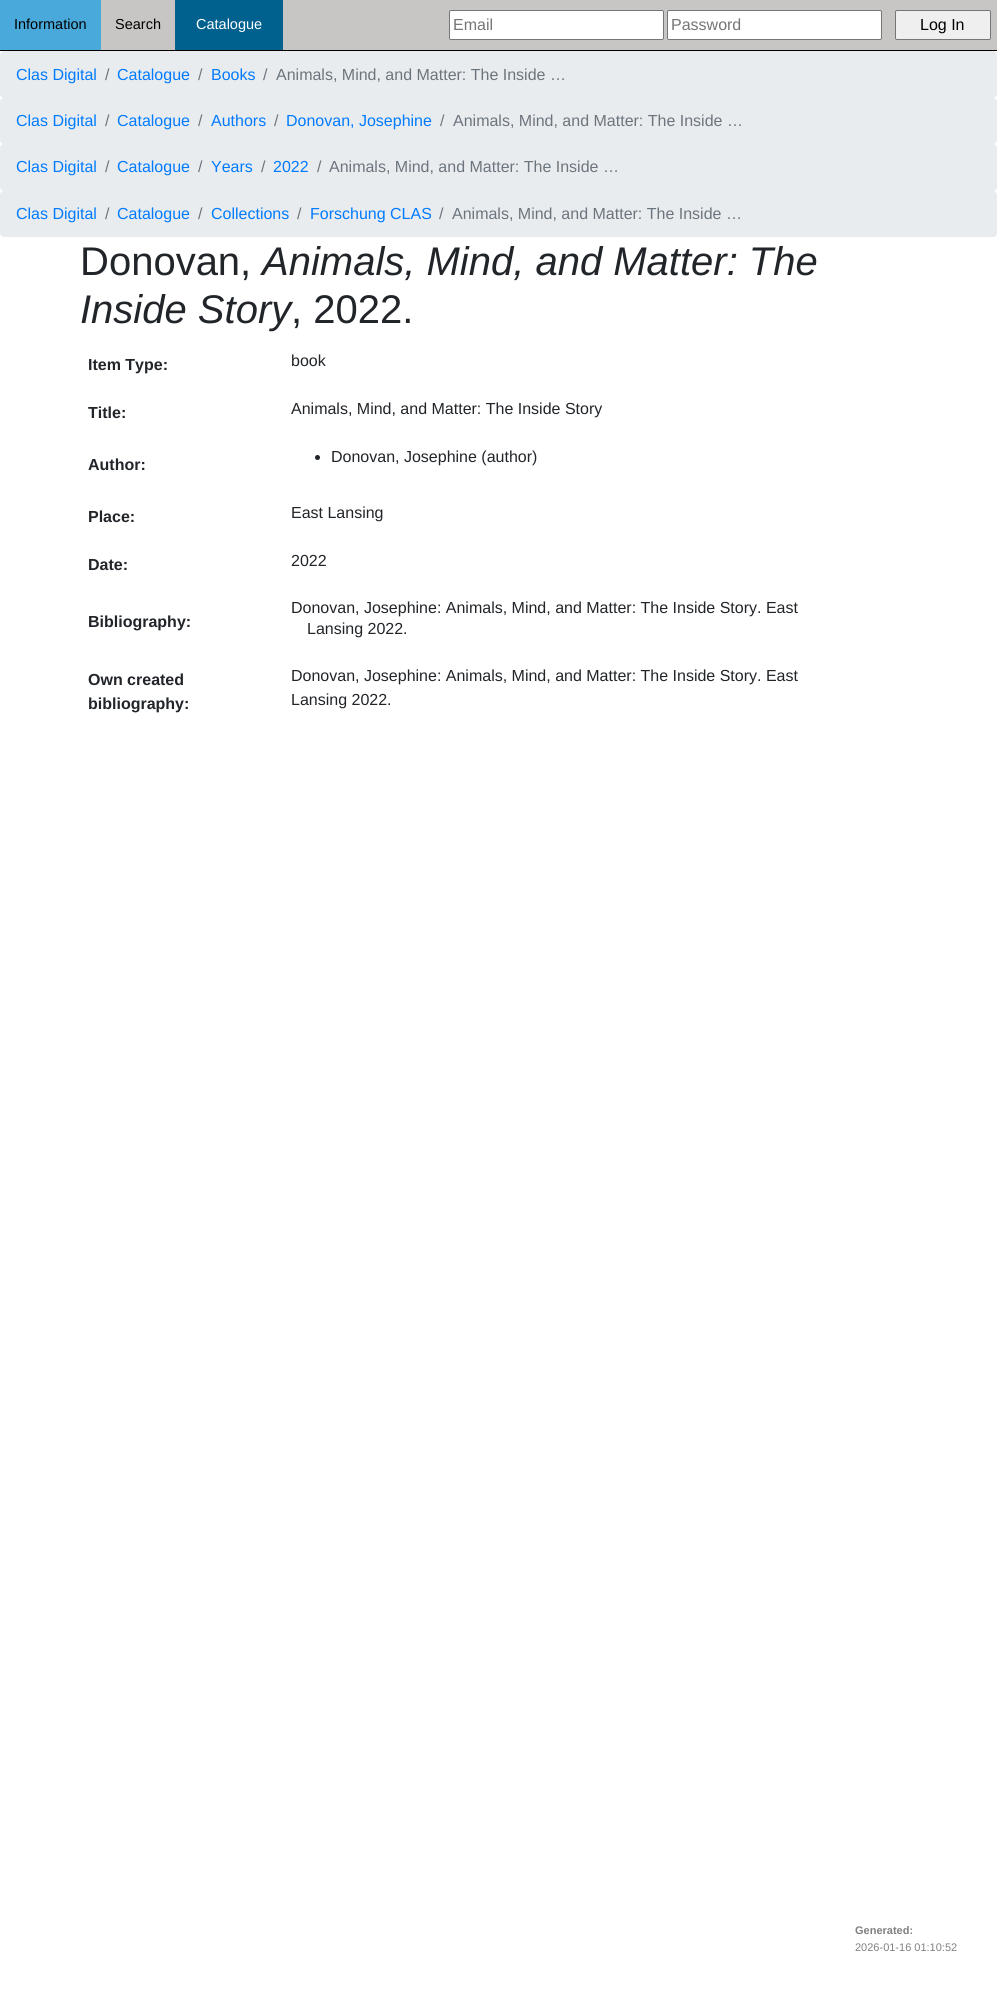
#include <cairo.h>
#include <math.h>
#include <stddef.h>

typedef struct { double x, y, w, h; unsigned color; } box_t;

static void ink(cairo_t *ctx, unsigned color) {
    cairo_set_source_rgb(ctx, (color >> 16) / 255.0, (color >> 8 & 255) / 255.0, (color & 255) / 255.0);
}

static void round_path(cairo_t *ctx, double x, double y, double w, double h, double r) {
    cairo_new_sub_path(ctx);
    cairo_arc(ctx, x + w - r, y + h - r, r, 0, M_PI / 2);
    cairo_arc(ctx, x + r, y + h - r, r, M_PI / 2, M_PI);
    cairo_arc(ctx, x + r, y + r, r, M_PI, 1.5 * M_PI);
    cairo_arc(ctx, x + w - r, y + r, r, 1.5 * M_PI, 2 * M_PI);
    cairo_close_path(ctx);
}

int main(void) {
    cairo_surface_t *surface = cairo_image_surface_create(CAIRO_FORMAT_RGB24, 997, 1991);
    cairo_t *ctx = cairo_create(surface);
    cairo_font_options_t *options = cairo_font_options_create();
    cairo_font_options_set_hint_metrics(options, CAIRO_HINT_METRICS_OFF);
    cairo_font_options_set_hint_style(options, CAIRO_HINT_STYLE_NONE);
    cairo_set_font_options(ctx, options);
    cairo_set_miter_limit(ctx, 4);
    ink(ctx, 0xFFFFFF);
    cairo_paint(ctx);
    {
        static const box_t items[] = {
            {101, 0, 896, 50, 0xC8C6C5},
            {0, 50, 997, 1, 0x000000},
            {0, 0, 101, 50, 0x48A9DA},
        };
        for (size_t i = 0; i < sizeof items / sizeof *items; i++) {
            ink(ctx, items[i].color);
            cairo_rectangle(ctx, items[i].x, items[i].y, items[i].w, items[i].h);
            cairo_fill(ctx);
        }
    }
    cairo_select_font_face(ctx, "Liberation Sans", CAIRO_FONT_SLANT_NORMAL, CAIRO_FONT_WEIGHT_NORMAL);
    cairo_set_font_size(ctx, 14.5);
    ink(ctx, 0x000000);
    cairo_move_to(ctx, 14, 29);
    cairo_show_text(ctx, "Information");
    cairo_move_to(ctx, 115, 29);
    cairo_show_text(ctx, "Search");
    ink(ctx, 0x00618F);
    cairo_rectangle(ctx, 175, 0, 108, 50);
    cairo_fill(ctx);
    ink(ctx, 0xFFFFFF);
    cairo_move_to(ctx, 196, 29);
    cairo_show_text(ctx, "Catalogue");
    round_path(ctx, 449.5, 10.5, 214, 29, 1.5);
    cairo_fill_preserve(ctx);
    ink(ctx, 0x767676);
    cairo_set_line_width(ctx, 1);
    cairo_stroke(ctx);
    cairo_set_font_size(ctx, 16);
    ink(ctx, 0x757575);
    cairo_move_to(ctx, 453, 30);
    cairo_show_text(ctx, "Email");
    ink(ctx, 0xFFFFFF);
    round_path(ctx, 667.5, 10.5, 214, 29, 1.5);
    cairo_fill_preserve(ctx);
    ink(ctx, 0x767676);
    cairo_stroke(ctx);
    ink(ctx, 0x757575);
    cairo_move_to(ctx, 671, 30);
    cairo_show_text(ctx, "Password");
    ink(ctx, 0xEFEFEF);
    round_path(ctx, 895.5, 10.5, 95, 29, 1.5);
    cairo_fill_preserve(ctx);
    ink(ctx, 0x767676);
    cairo_stroke(ctx);
    ink(ctx, 0x000000);
    cairo_move_to(ctx, 920, 30);
    cairo_show_text(ctx, "Log In");
    ink(ctx, 0xE9ECEF);
    round_path(ctx, 0, 51, 997, 47, 4);
    cairo_fill(ctx);
    ink(ctx, 0x007BFF);
    cairo_move_to(ctx, 16, 80);
    cairo_show_text(ctx, "Clas Digital");
    ink(ctx, 0x6C757D);
    cairo_move_to(ctx, 105, 80);
    cairo_show_text(ctx, "/");
    ink(ctx, 0x007BFF);
    cairo_move_to(ctx, 117, 80);
    cairo_show_text(ctx, "Catalogue");
    ink(ctx, 0x6C757D);
    cairo_move_to(ctx, 198, 80);
    cairo_show_text(ctx, "/");
    ink(ctx, 0x007BFF);
    cairo_move_to(ctx, 211, 80);
    cairo_show_text(ctx, "Books");
    ink(ctx, 0x6C757D);
    cairo_move_to(ctx, 263, 80);
    cairo_show_text(ctx, "/");
    cairo_move_to(ctx, 276, 80);
    cairo_show_text(ctx, "Animals, Mind, and Matter: The Inside …");
    ink(ctx, 0xE9ECEF);
    round_path(ctx, 0, 98, 997, 46, 4);
    cairo_fill(ctx);
    ink(ctx, 0x007BFF);
    cairo_move_to(ctx, 16, 126);
    cairo_show_text(ctx, "Clas Digital");
    ink(ctx, 0x6C757D);
    cairo_move_to(ctx, 105, 126);
    cairo_show_text(ctx, "/");
    ink(ctx, 0x007BFF);
    cairo_move_to(ctx, 117, 126);
    cairo_show_text(ctx, "Catalogue");
    ink(ctx, 0x6C757D);
    cairo_move_to(ctx, 198, 126);
    cairo_show_text(ctx, "/");
    ink(ctx, 0x007BFF);
    cairo_move_to(ctx, 211, 126);
    cairo_show_text(ctx, "Authors");
    ink(ctx, 0x6C757D);
    cairo_move_to(ctx, 274, 126);
    cairo_show_text(ctx, "/");
    ink(ctx, 0x007BFF);
    cairo_move_to(ctx, 286, 126);
    cairo_show_text(ctx, "Donovan, Josephine");
    ink(ctx, 0x6C757D);
    cairo_move_to(ctx, 440, 126);
    cairo_show_text(ctx, "/");
    cairo_move_to(ctx, 453, 126);
    cairo_show_text(ctx, "Animals, Mind, and Matter: The Inside …");
    ink(ctx, 0xE9ECEF);
    round_path(ctx, 0, 144, 997, 47, 4);
    cairo_fill(ctx);
    ink(ctx, 0x007BFF);
    cairo_move_to(ctx, 16, 172);
    cairo_show_text(ctx, "Clas Digital");
    ink(ctx, 0x6C757D);
    cairo_move_to(ctx, 105, 172);
    cairo_show_text(ctx, "/");
    ink(ctx, 0x007BFF);
    cairo_move_to(ctx, 117, 172);
    cairo_show_text(ctx, "Catalogue");
    ink(ctx, 0x6C757D);
    cairo_move_to(ctx, 198, 172);
    cairo_show_text(ctx, "/");
    ink(ctx, 0x007BFF);
    cairo_move_to(ctx, 211, 172);
    cairo_show_text(ctx, "Years");
    ink(ctx, 0x6C757D);
    cairo_move_to(ctx, 261, 172);
    cairo_show_text(ctx, "/");
    ink(ctx, 0x007BFF);
    cairo_move_to(ctx, 273, 172);
    cairo_show_text(ctx, "2022");
    ink(ctx, 0x6C757D);
    cairo_move_to(ctx, 317, 172);
    cairo_show_text(ctx, "/");
    cairo_move_to(ctx, 329, 172);
    cairo_show_text(ctx, "Animals, Mind, and Matter: The Inside …");
    ink(ctx, 0xE9ECEF);
    round_path(ctx, 0, 191, 997, 46, 4);
    cairo_fill(ctx);
    ink(ctx, 0x007BFF);
    cairo_move_to(ctx, 16, 219);
    cairo_show_text(ctx, "Clas Digital");
    ink(ctx, 0x6C757D);
    cairo_move_to(ctx, 105, 219);
    cairo_show_text(ctx, "/");
    ink(ctx, 0x007BFF);
    cairo_move_to(ctx, 117, 219);
    cairo_show_text(ctx, "Catalogue");
    ink(ctx, 0x6C757D);
    cairo_move_to(ctx, 198, 219);
    cairo_show_text(ctx, "/");
    ink(ctx, 0x007BFF);
    cairo_move_to(ctx, 211, 219);
    cairo_show_text(ctx, "Collections");
    ink(ctx, 0x6C757D);
    cairo_move_to(ctx, 297, 219);
    cairo_show_text(ctx, "/");
    ink(ctx, 0x007BFF);
    cairo_move_to(ctx, 310, 219);
    cairo_show_text(ctx, "Forschung CLAS");
    ink(ctx, 0x6C757D);
    cairo_move_to(ctx, 439, 219);
    cairo_show_text(ctx, "/");
    cairo_move_to(ctx, 452, 219);
    cairo_show_text(ctx, "Animals, Mind, and Matter: The Inside …");
    cairo_set_font_size(ctx, 40);
    ink(ctx, 0x212529);
    cairo_move_to(ctx, 80, 275);
    cairo_show_text(ctx, "Donovan,");
    cairo_select_font_face(ctx, "Liberation Sans", CAIRO_FONT_SLANT_ITALIC, CAIRO_FONT_WEIGHT_NORMAL);
    cairo_move_to(ctx, 262, 275);
    cairo_show_text(ctx, "Animals, Mind, and Matter: The");
    cairo_move_to(ctx, 80, 323);
    cairo_show_text(ctx, "Inside Story");
    cairo_select_font_face(ctx, "Liberation Sans", CAIRO_FONT_SLANT_NORMAL, CAIRO_FONT_WEIGHT_NORMAL);
    cairo_move_to(ctx, 291, 323);
    cairo_show_text(ctx, ", 2022.");
    cairo_select_font_face(ctx, "Liberation Sans", CAIRO_FONT_SLANT_NORMAL, CAIRO_FONT_WEIGHT_BOLD);
    cairo_set_font_size(ctx, 16);
    cairo_move_to(ctx, 88, 370);
    cairo_show_text(ctx, "Item Type:");
    cairo_select_font_face(ctx, "Liberation Sans", CAIRO_FONT_SLANT_NORMAL, CAIRO_FONT_WEIGHT_NORMAL);
    cairo_move_to(ctx, 291, 366);
    cairo_show_text(ctx, "book");
    cairo_select_font_face(ctx, "Liberation Sans", CAIRO_FONT_SLANT_NORMAL, CAIRO_FONT_WEIGHT_BOLD);
    cairo_move_to(ctx, 88, 418);
    cairo_show_text(ctx, "Title:");
    cairo_select_font_face(ctx, "Liberation Sans", CAIRO_FONT_SLANT_NORMAL, CAIRO_FONT_WEIGHT_NORMAL);
    cairo_move_to(ctx, 291, 414);
    cairo_show_text(ctx, "Animals, Mind, and Matter: The Inside Story");
    cairo_select_font_face(ctx, "Liberation Sans", CAIRO_FONT_SLANT_NORMAL, CAIRO_FONT_WEIGHT_BOLD);
    cairo_move_to(ctx, 88, 470);
    cairo_show_text(ctx, "Author:");
    cairo_new_path(ctx);
    cairo_arc(ctx, 317.5, 457.5, 2.5, 0, 2 * M_PI);
    cairo_fill(ctx);
    cairo_select_font_face(ctx, "Liberation Sans", CAIRO_FONT_SLANT_NORMAL, CAIRO_FONT_WEIGHT_NORMAL);
    cairo_move_to(ctx, 331, 462);
    cairo_show_text(ctx, "Donovan, Josephine (author)");
    cairo_select_font_face(ctx, "Liberation Sans", CAIRO_FONT_SLANT_NORMAL, CAIRO_FONT_WEIGHT_BOLD);
    cairo_move_to(ctx, 88, 522);
    cairo_show_text(ctx, "Place:");
    cairo_select_font_face(ctx, "Liberation Sans", CAIRO_FONT_SLANT_NORMAL, CAIRO_FONT_WEIGHT_NORMAL);
    cairo_move_to(ctx, 291, 518);
    cairo_show_text(ctx, "East Lansing");
    cairo_select_font_face(ctx, "Liberation Sans", CAIRO_FONT_SLANT_NORMAL, CAIRO_FONT_WEIGHT_BOLD);
    cairo_move_to(ctx, 88, 570);
    cairo_show_text(ctx, "Date:");
    cairo_select_font_face(ctx, "Liberation Sans", CAIRO_FONT_SLANT_NORMAL, CAIRO_FONT_WEIGHT_NORMAL);
    cairo_move_to(ctx, 291, 566);
    cairo_show_text(ctx, "2022");
    cairo_select_font_face(ctx, "Liberation Sans", CAIRO_FONT_SLANT_NORMAL, CAIRO_FONT_WEIGHT_BOLD);
    cairo_move_to(ctx, 88, 627);
    cairo_show_text(ctx, "Bibliography:");
    cairo_select_font_face(ctx, "Liberation Sans", CAIRO_FONT_SLANT_NORMAL, CAIRO_FONT_WEIGHT_NORMAL);
    cairo_move_to(ctx, 291, 613);
    cairo_show_text(ctx, "Donovan, Josephine: Animals, Mind, and Matter: The Inside Story. East");
    cairo_move_to(ctx, 307, 634);
    cairo_show_text(ctx, "Lansing 2022.");
    cairo_select_font_face(ctx, "Liberation Sans", CAIRO_FONT_SLANT_NORMAL, CAIRO_FONT_WEIGHT_BOLD);
    cairo_move_to(ctx, 88, 685);
    cairo_show_text(ctx, "Own created");
    cairo_move_to(ctx, 88, 709);
    cairo_show_text(ctx, "bibliography:");
    cairo_select_font_face(ctx, "Liberation Sans", CAIRO_FONT_SLANT_NORMAL, CAIRO_FONT_WEIGHT_NORMAL);
    cairo_move_to(ctx, 291, 681);
    cairo_show_text(ctx, "Donovan, Josephine: Animals, Mind, and Matter: The Inside Story. East");
    cairo_move_to(ctx, 291, 705);
    cairo_show_text(ctx, "Lansing 2022.");
    cairo_select_font_face(ctx, "Liberation Sans", CAIRO_FONT_SLANT_NORMAL, CAIRO_FONT_WEIGHT_BOLD);
    cairo_set_font_size(ctx, 11);
    ink(ctx, 0x808080);
    cairo_move_to(ctx, 855, 1934);
    cairo_show_text(ctx, "Generated:");
    cairo_select_font_face(ctx, "Liberation Sans", CAIRO_FONT_SLANT_NORMAL, CAIRO_FONT_WEIGHT_NORMAL);
    cairo_move_to(ctx, 855, 1951);
    cairo_show_text(ctx, "2026-01-16 01:10:52");
    cairo_surface_write_to_png(surface, "image.png");
    cairo_font_options_destroy(options);
    cairo_destroy(ctx);
    cairo_surface_destroy(surface);
    return 0;
}
